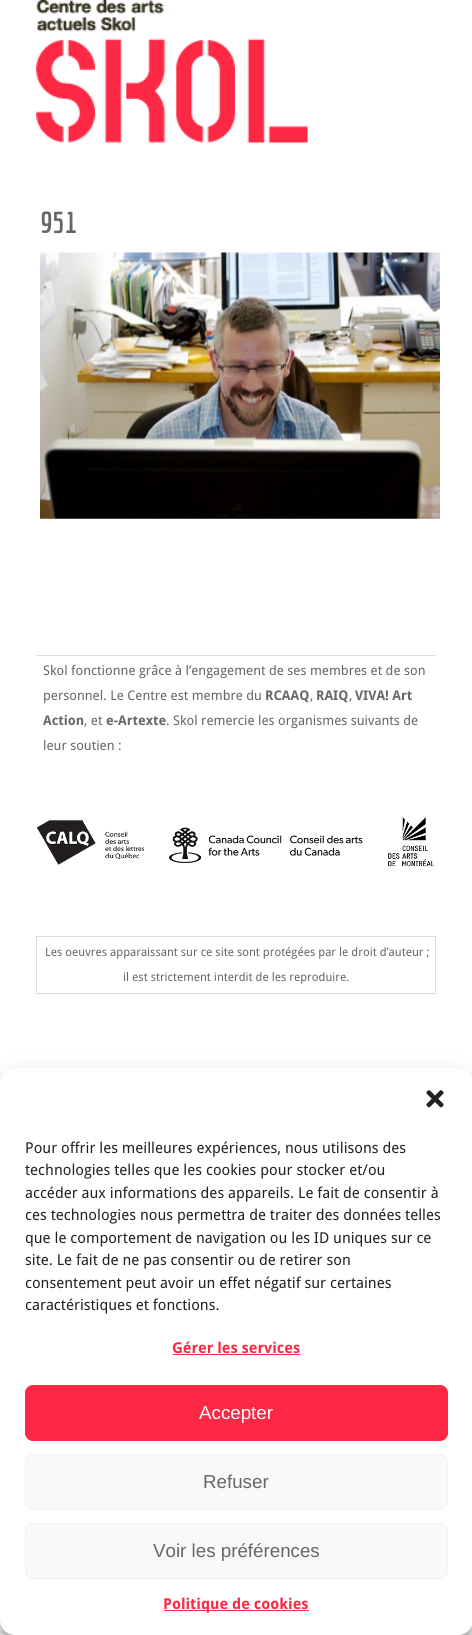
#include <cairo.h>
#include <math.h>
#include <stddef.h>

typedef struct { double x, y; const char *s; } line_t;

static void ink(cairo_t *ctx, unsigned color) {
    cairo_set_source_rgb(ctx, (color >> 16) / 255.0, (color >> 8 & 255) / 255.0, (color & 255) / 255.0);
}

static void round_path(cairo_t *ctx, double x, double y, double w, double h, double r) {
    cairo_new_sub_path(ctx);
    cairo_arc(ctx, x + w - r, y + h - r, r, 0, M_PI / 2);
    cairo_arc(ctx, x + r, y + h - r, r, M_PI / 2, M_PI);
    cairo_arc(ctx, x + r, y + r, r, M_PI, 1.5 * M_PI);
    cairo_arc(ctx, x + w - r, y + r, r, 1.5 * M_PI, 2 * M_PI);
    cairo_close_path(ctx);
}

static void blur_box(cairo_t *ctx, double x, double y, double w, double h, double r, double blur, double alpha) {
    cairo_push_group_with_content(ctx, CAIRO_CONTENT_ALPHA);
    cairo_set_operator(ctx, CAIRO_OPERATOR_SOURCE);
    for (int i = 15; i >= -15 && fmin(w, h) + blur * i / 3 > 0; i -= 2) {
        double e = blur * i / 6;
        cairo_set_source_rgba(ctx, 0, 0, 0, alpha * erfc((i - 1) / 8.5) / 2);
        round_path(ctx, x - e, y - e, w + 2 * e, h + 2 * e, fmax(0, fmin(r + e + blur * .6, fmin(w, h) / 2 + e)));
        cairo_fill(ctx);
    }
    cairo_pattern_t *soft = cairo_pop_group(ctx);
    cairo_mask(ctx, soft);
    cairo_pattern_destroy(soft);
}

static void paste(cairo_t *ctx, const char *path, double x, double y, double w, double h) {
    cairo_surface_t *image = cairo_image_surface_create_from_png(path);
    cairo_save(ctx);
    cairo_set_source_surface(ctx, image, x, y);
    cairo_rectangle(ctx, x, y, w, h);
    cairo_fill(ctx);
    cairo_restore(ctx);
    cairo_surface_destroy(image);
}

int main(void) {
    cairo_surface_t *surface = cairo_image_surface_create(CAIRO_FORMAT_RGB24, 472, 1635);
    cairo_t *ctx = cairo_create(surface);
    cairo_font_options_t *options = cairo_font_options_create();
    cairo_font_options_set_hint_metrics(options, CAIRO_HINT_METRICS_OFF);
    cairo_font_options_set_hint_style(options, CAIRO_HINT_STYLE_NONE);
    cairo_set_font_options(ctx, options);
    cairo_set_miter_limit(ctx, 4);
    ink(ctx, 0xFFFFFF);
    cairo_paint(ctx);
    paste(ctx, "media/1.png", 36, 0, 272, 143);
    cairo_select_font_face(ctx, "Economica", CAIRO_FONT_SLANT_NORMAL, CAIRO_FONT_WEIGHT_BOLD);
    cairo_set_font_size(ctx, 30);
    ink(ctx, 0x666666);
    cairo_move_to(ctx, 40, 233);
    cairo_show_text(ctx, "951");
    paste(ctx, "media/2.png", 40, 252, 400, 267);
    ink(ctx, 0xDDDDDD);
    cairo_rectangle(ctx, 36, 655, 400, 1);
    cairo_fill(ctx);
    cairo_select_font_face(ctx, "Droid Sans", CAIRO_FONT_SLANT_NORMAL, CAIRO_FONT_WEIGHT_NORMAL);
    cairo_set_font_size(ctx, 13.3);
    ink(ctx, 0x666666);
    cairo_move_to(ctx, 43, 675);
    cairo_show_text(ctx, "Skol fonctionne grâce à l’engagement de ses membres et de son");
    cairo_move_to(ctx, 43, 700);
    cairo_show_text(ctx, "personnel. Le Centre est membre du");
    cairo_select_font_face(ctx, "Droid Sans", CAIRO_FONT_SLANT_NORMAL, CAIRO_FONT_WEIGHT_BOLD);
    cairo_move_to(ctx, 265, 700);
    cairo_show_text(ctx, "RCAAQ");
    cairo_select_font_face(ctx, "Droid Sans", CAIRO_FONT_SLANT_NORMAL, CAIRO_FONT_WEIGHT_NORMAL);
    cairo_move_to(ctx, 310, 700);
    cairo_show_text(ctx, ",");
    cairo_select_font_face(ctx, "Droid Sans", CAIRO_FONT_SLANT_NORMAL, CAIRO_FONT_WEIGHT_BOLD);
    cairo_move_to(ctx, 316, 700);
    cairo_show_text(ctx, "RAIQ");
    cairo_select_font_face(ctx, "Droid Sans", CAIRO_FONT_SLANT_NORMAL, CAIRO_FONT_WEIGHT_NORMAL);
    cairo_move_to(ctx, 349, 700);
    cairo_show_text(ctx, ",");
    cairo_select_font_face(ctx, "Droid Sans", CAIRO_FONT_SLANT_NORMAL, CAIRO_FONT_WEIGHT_BOLD);
    cairo_move_to(ctx, 355, 700);
    cairo_show_text(ctx, "VIVA! Art");
    cairo_move_to(ctx, 43, 725);
    cairo_show_text(ctx, "Action");
    cairo_select_font_face(ctx, "Droid Sans", CAIRO_FONT_SLANT_NORMAL, CAIRO_FONT_WEIGHT_NORMAL);
    cairo_move_to(ctx, 84, 725);
    cairo_show_text(ctx, ", et");
    cairo_select_font_face(ctx, "Droid Sans", CAIRO_FONT_SLANT_NORMAL, CAIRO_FONT_WEIGHT_BOLD);
    cairo_move_to(ctx, 106, 725);
    cairo_show_text(ctx, "e-Artexte");
    cairo_select_font_face(ctx, "Droid Sans", CAIRO_FONT_SLANT_NORMAL, CAIRO_FONT_WEIGHT_NORMAL);
    cairo_move_to(ctx, 166, 725);
    cairo_show_text(ctx, ". Skol remercie les organismes suivants de");
    cairo_move_to(ctx, 43, 750);
    cairo_show_text(ctx, "leur soutien :");
    paste(ctx, "media/3.png", 37, 817, 397, 50);
    cairo_rectangle(ctx, 36.5, 936.5, 399, 57);
    ink(ctx, 0xDDDDDD);
    cairo_set_line_width(ctx, 1);
    cairo_stroke(ctx);
    cairo_set_font_size(ctx, 11.7);
    ink(ctx, 0x666666);
    cairo_move_to(ctx, 45, 956);
    cairo_show_text(ctx, "Les oeuvres apparaissant sur ce site sont protégées par le droit d’auteur ;");
    cairo_move_to(ctx, 123, 981);
    cairo_show_text(ctx, "il est strictement interdit de les reproduire.");
    ink(ctx, 0x000000);
    blur_box(ctx, 0, 1075, 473, 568, 15, 4, 0.23);
    blur_box(ctx, 0, 1080, 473, 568, 15, 12.5, 0.19);
    ink(ctx, 0xFFFFFF);
    round_path(ctx, 0, 1068, 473, 567, 15);
    cairo_fill(ctx);
    paste(ctx, "media/4.png", 426, 1090, 18, 18);
    cairo_set_font_size(ctx, 15);
    ink(ctx, 0x222222);
    {
        static const line_t items[] = {
            {25, 1153, "Pour offrir les meilleures expériences, nous utilisons des"},
            {25, 1175, "technologies telles que les cookies pour stocker et/ou"},
            {25, 1198, "accéder aux informations des appareils. Le fait de consentir à"},
            {25, 1220, "ces technologies nous permettra de traiter des données telles"},
            {25, 1243, "que le comportement de navigation ou les ID uniques sur ce"},
            {25, 1265, "site. Le fait de ne pas consentir ou de retirer son"},
            {25, 1288, "consentement peut avoir un effet négatif sur certaines"},
            {25, 1310, "caractéristiques et fonctions."},
        };
        for (size_t i = 0; i < sizeof items / sizeof *items; i++) {
            cairo_move_to(ctx, items[i].x, items[i].y);
            cairo_show_text(ctx, items[i].s);
        }
    }
    cairo_select_font_face(ctx, "Droid Sans", CAIRO_FONT_SLANT_NORMAL, CAIRO_FONT_WEIGHT_BOLD);
    ink(ctx, 0xFD2843);
    cairo_move_to(ctx, 172, 1353);
    cairo_show_text(ctx, "Gérer les services");
    cairo_rectangle(ctx, 173, 1354, 127, 1);
    cairo_fill(ctx);
    round_path(ctx, 25.5, 1385.5, 422, 55, 7.5);
    cairo_fill_preserve(ctx);
    cairo_stroke(ctx);
    cairo_select_font_face(ctx, "Liberation Sans", CAIRO_FONT_SLANT_NORMAL, CAIRO_FONT_WEIGHT_NORMAL);
    cairo_set_font_size(ctx, 18.75);
    ink(ctx, 0xFFFFFF);
    cairo_move_to(ctx, 199, 1419);
    cairo_show_text(ctx, "Accepter");
    ink(ctx, 0xF9F9F9);
    round_path(ctx, 25.5, 1454.5, 422, 55, 7.5);
    cairo_fill_preserve(ctx);
    ink(ctx, 0xF2F2F2);
    cairo_stroke(ctx);
    ink(ctx, 0x666666);
    cairo_move_to(ctx, 203, 1488);
    cairo_show_text(ctx, "Refuser");
    ink(ctx, 0xF9F9F9);
    round_path(ctx, 25.5, 1523.5, 422, 55, 7.5);
    cairo_fill_preserve(ctx);
    ink(ctx, 0xF2F2F2);
    cairo_stroke(ctx);
    ink(ctx, 0x666666);
    cairo_move_to(ctx, 153, 1557);
    cairo_show_text(ctx, "Voir les préférences");
    ink(ctx, 0xFD2843);
    cairo_rectangle(ctx, 164, 1610, 145, 1);
    cairo_fill(ctx);
    cairo_select_font_face(ctx, "Droid Sans", CAIRO_FONT_SLANT_NORMAL, CAIRO_FONT_WEIGHT_BOLD);
    cairo_set_font_size(ctx, 15);
    cairo_move_to(ctx, 163, 1609);
    cairo_show_text(ctx, "Politique de cookies");
    cairo_surface_write_to_png(surface, "image.png");
    cairo_font_options_destroy(options);
    cairo_destroy(ctx);
    cairo_surface_destroy(surface);
    return 0;
}
